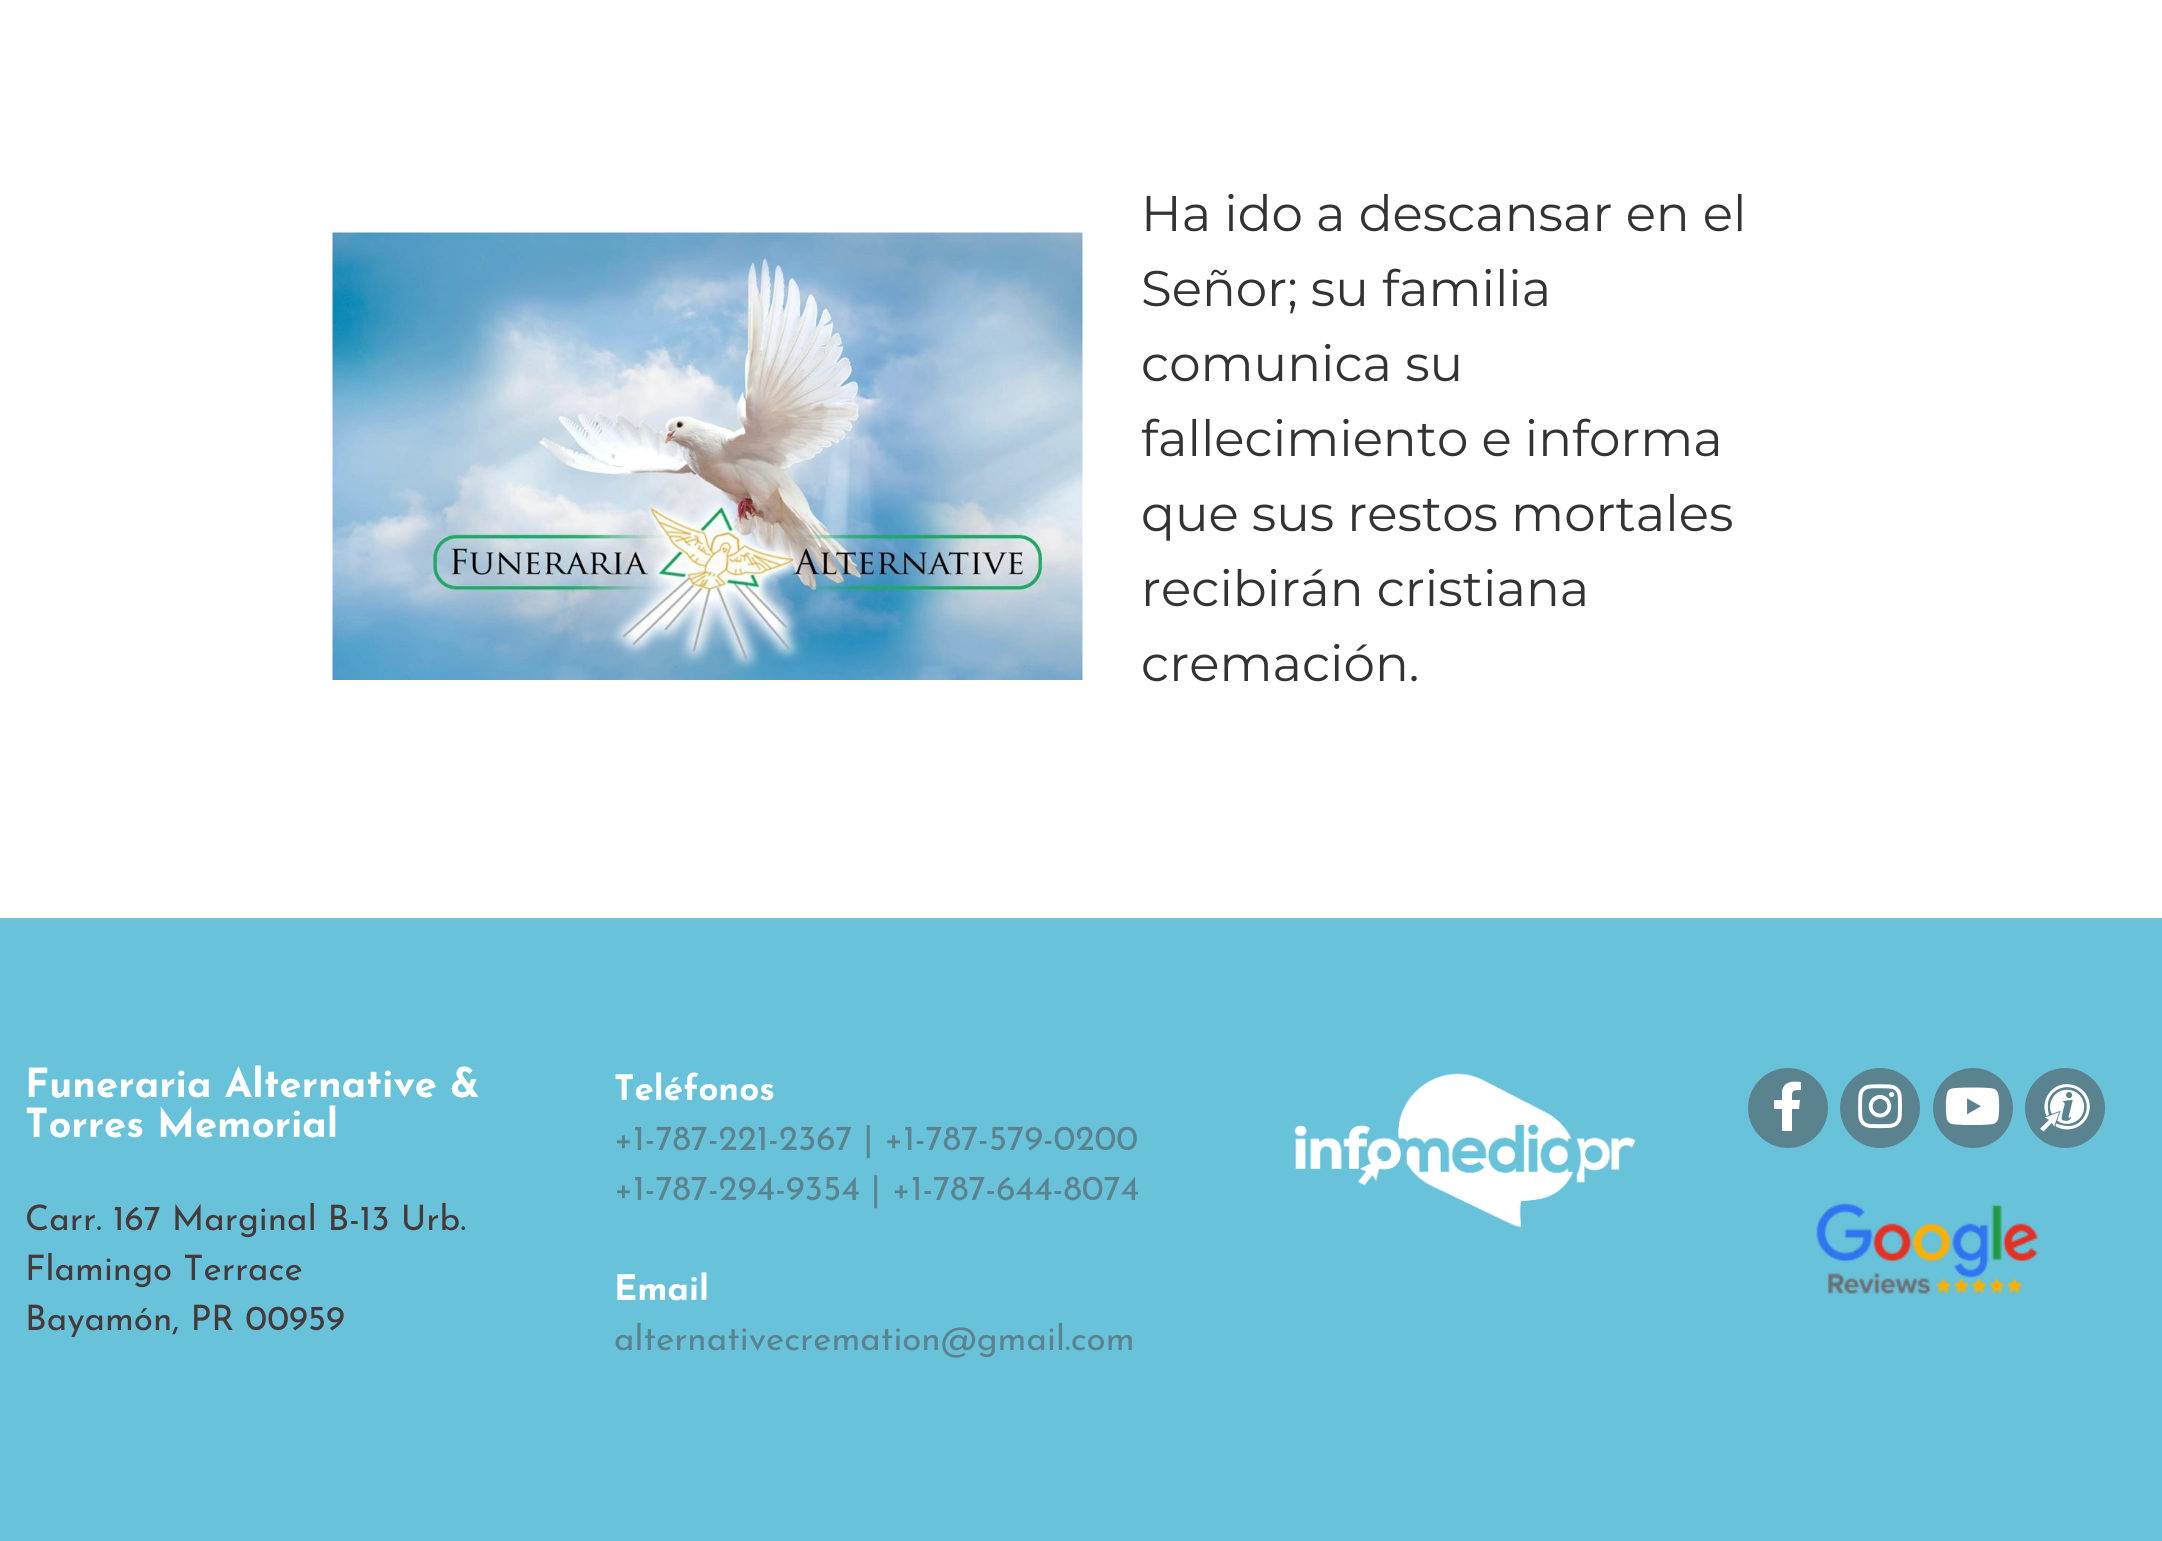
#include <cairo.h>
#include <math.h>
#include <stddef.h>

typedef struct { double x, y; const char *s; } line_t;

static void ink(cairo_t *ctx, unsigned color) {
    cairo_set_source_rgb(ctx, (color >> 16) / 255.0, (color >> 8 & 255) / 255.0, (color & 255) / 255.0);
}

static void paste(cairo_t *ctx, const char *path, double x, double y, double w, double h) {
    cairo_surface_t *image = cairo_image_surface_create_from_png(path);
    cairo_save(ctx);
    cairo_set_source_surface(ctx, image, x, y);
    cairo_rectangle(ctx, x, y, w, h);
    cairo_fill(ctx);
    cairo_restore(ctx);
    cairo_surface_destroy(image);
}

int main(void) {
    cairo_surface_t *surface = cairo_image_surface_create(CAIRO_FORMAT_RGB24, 2162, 1541);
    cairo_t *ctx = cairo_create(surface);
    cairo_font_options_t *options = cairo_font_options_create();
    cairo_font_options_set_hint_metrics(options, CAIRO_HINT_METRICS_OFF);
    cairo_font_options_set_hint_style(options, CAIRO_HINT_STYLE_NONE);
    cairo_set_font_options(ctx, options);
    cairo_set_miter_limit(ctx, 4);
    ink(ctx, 0xFFFFFF);
    cairo_paint(ctx);
    paste(ctx, "media/1.png", 332, 232, 751, 448);
    cairo_select_font_face(ctx, "Montserrat", CAIRO_FONT_SLANT_NORMAL, CAIRO_FONT_WEIGHT_NORMAL);
    cairo_set_font_size(ctx, 50);
    ink(ctx, 0x333333);
    {
        static const line_t items[] = {
            {1141, 231, "Ha ido a descansar en el"},
            {1141, 306, "Señor; su familia"},
            {1141, 381, "comunica su"},
            {1141, 456, "fallecimiento e informa"},
            {1141, 531, "que sus restos mortales"},
            {1141, 606, "recibirán cristiana"},
            {1141, 681, "cremación."},
        };
        for (size_t i = 0; i < sizeof items / sizeof *items; i++) {
            cairo_move_to(ctx, items[i].x, items[i].y);
            cairo_show_text(ctx, items[i].s);
        }
    }
    ink(ctx, 0x68C2DA);
    cairo_rectangle(ctx, 0, 918, 2162, 623);
    cairo_fill(ctx);
    cairo_select_font_face(ctx, "Josefin Sans", CAIRO_FONT_SLANT_NORMAL, CAIRO_FONT_WEIGHT_BOLD);
    cairo_set_font_size(ctx, 40);
    ink(ctx, 0xFFFFFF);
    cairo_move_to(ctx, 25, 1097);
    cairo_show_text(ctx, "Funeraria Alternative &");
    cairo_move_to(ctx, 25, 1137);
    cairo_show_text(ctx, "Torres Memorial");
    cairo_select_font_face(ctx, "Josefin Sans", CAIRO_FONT_SLANT_NORMAL, CAIRO_FONT_WEIGHT_NORMAL);
    cairo_set_font_size(ctx, 35);
    ink(ctx, 0x463939);
    {
        static const line_t items[] = {
            {25, 1230, "Carr. 167 Marginal B-13 Urb."},
            {25, 1280, "Flamingo Terrace"},
            {25, 1330, "Bayamón, PR 00959"},
        };
        for (size_t i = 0; i < sizeof items / sizeof *items; i++) {
            cairo_move_to(ctx, items[i].x, items[i].y);
            cairo_show_text(ctx, items[i].s);
        }
    }
    cairo_select_font_face(ctx, "Josefin Sans", CAIRO_FONT_SLANT_NORMAL, CAIRO_FONT_WEIGHT_BOLD);
    ink(ctx, 0xFFFFFF);
    cairo_move_to(ctx, 614, 1100);
    cairo_show_text(ctx, "Teléfonos");
    cairo_select_font_face(ctx, "Josefin Sans", CAIRO_FONT_SLANT_NORMAL, CAIRO_FONT_WEIGHT_NORMAL);
    ink(ctx, 0x5B838F);
    cairo_move_to(ctx, 614, 1150);
    cairo_show_text(ctx, "+1-787-221-2367 | +1-787-579-0200");
    cairo_move_to(ctx, 614, 1200);
    cairo_show_text(ctx, "+1-787-294-9354 | +1-787-644-8074");
    cairo_select_font_face(ctx, "Josefin Sans", CAIRO_FONT_SLANT_NORMAL, CAIRO_FONT_WEIGHT_BOLD);
    ink(ctx, 0xFFFFFF);
    cairo_move_to(ctx, 614, 1300);
    cairo_show_text(ctx, "Email");
    cairo_select_font_face(ctx, "Josefin Sans", CAIRO_FONT_SLANT_NORMAL, CAIRO_FONT_WEIGHT_NORMAL);
    ink(ctx, 0x5B838F);
    cairo_move_to(ctx, 614, 1350);
    cairo_show_text(ctx, "alternativecremation@gmail.com");
    paste(ctx, "media/2.png", 1294, 1073, 342, 155);
    cairo_arc(ctx, 1788, 1108, 40, 0, 2 * M_PI);
    cairo_fill(ctx);
    ink(ctx, 0xFFFFFF);
    cairo_new_path(ctx);
    cairo_move_to(ctx, 1799, 1109);
    cairo_line_to(ctx, 1792, 1109);
    cairo_line_to(ctx, 1792, 1131);
    cairo_line_to(ctx, 1782, 1131);
    cairo_line_to(ctx, 1782, 1109);
    cairo_line_to(ctx, 1774, 1109);
    cairo_line_to(ctx, 1774, 1100);
    cairo_line_to(ctx, 1782, 1100);
    cairo_line_to(ctx, 1782, 1091);
    cairo_curve_to(ctx, 1784, 1081, 1793, 1081, 1801, 1082);
    cairo_line_to(ctx, 1801, 1090);
    cairo_curve_to(ctx, 1791, 1090, 1792, 1091, 1792, 1100);
    cairo_line_to(ctx, 1800, 1100);
    cairo_close_path(ctx);
    cairo_fill(ctx);
    ink(ctx, 0x5B838F);
    cairo_arc(ctx, 1880, 1108, 40, 0, 2 * M_PI);
    cairo_fill(ctx);
    paste(ctx, "media/3.png", 1858, 1084, 44, 45);
    cairo_arc(ctx, 1973, 1108, 40, 0, 2 * M_PI);
    cairo_fill(ctx);
    paste(ctx, "media/4.png", 1945, 1087, 55, 38);
    cairo_arc(ctx, 2065, 1108, 40, 0, 2 * M_PI);
    cairo_fill(ctx);
    paste(ctx, "media/5.png", 2040, 1084, 50, 48);
    paste(ctx, "media/6.png", 1816, 1203, 222, 91);
    cairo_surface_write_to_png(surface, "image.png");
    cairo_font_options_destroy(options);
    cairo_destroy(ctx);
    cairo_surface_destroy(surface);
    return 0;
}
